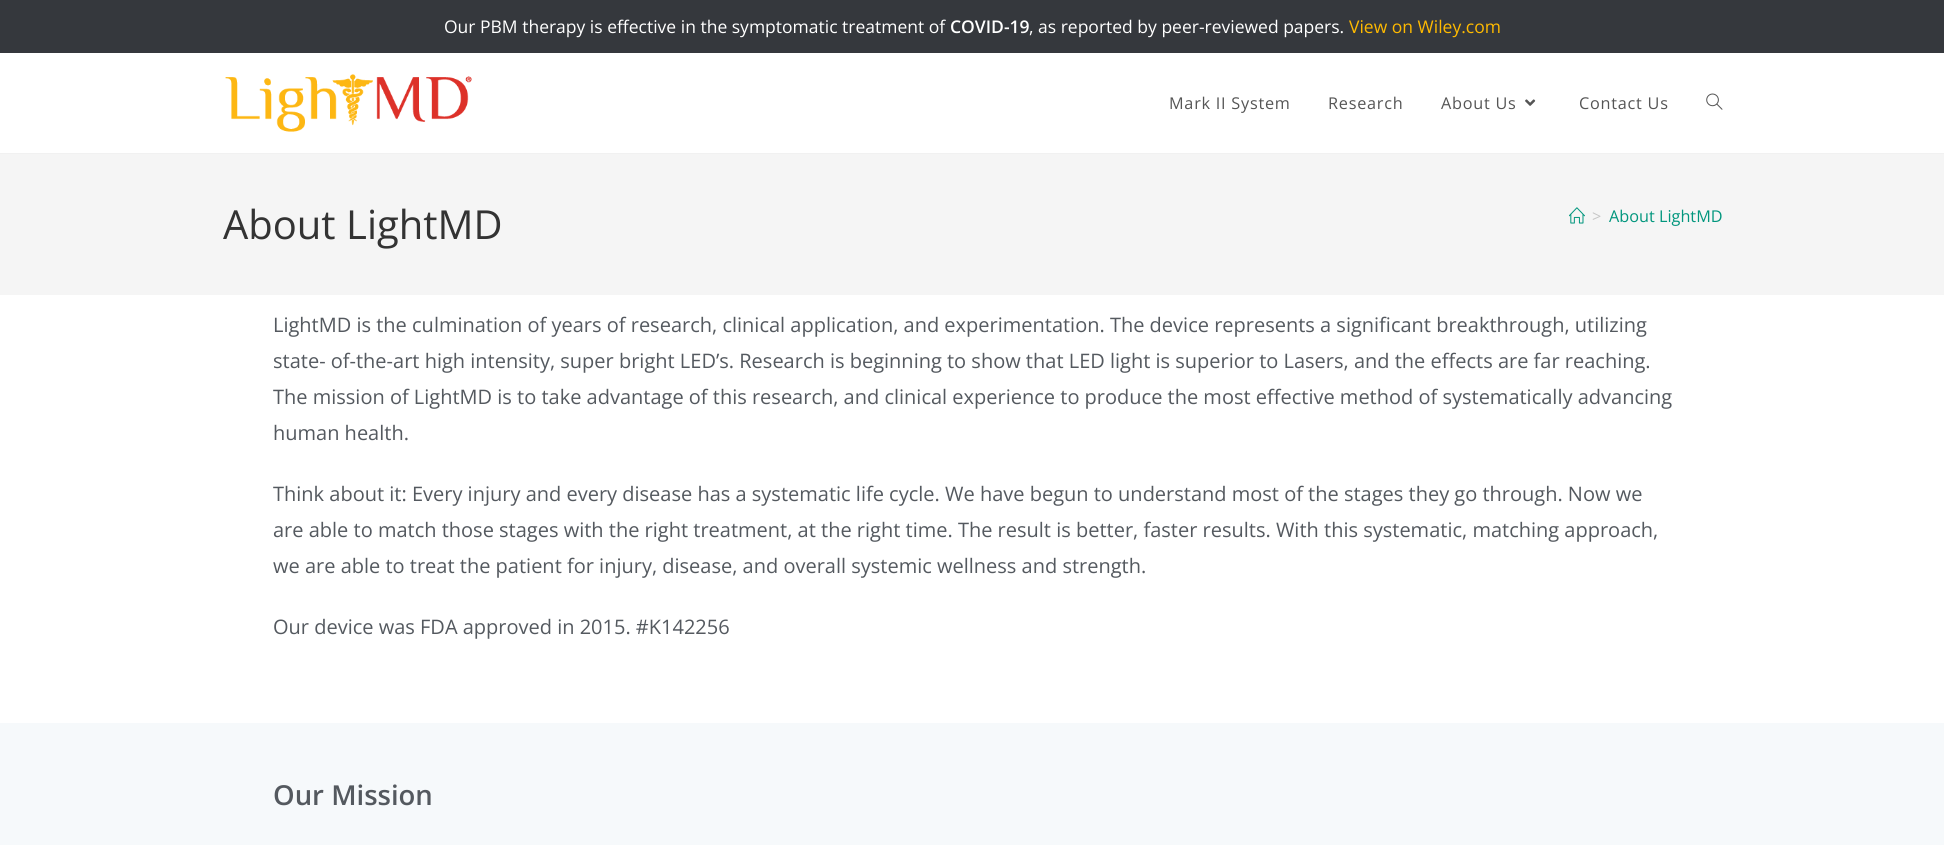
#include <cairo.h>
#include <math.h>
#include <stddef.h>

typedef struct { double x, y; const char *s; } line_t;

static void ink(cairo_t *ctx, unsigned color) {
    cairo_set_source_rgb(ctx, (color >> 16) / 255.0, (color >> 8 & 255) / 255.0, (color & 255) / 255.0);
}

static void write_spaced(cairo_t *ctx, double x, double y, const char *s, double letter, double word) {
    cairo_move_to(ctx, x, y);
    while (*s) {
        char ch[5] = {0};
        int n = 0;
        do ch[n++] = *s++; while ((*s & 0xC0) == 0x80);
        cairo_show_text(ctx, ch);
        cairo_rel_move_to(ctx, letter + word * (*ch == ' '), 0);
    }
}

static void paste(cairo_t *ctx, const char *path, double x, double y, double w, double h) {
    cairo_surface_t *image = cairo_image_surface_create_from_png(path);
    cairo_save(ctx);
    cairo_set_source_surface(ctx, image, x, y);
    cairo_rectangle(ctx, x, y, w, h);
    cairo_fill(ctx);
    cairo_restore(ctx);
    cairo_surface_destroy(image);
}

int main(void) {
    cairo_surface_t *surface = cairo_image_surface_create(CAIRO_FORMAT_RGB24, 1944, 845);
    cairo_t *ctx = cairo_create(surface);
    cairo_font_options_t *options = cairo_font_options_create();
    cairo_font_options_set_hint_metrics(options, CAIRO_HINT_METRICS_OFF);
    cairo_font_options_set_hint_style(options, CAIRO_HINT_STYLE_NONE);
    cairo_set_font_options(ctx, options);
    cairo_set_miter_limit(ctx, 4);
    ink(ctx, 0xFFFFFF);
    cairo_paint(ctx);
    ink(ctx, 0x35383D);
    cairo_rectangle(ctx, 0, 0, 1944, 53);
    cairo_fill(ctx);
    cairo_select_font_face(ctx, "Open Sans", CAIRO_FONT_SLANT_NORMAL, CAIRO_FONT_WEIGHT_NORMAL);
    cairo_set_font_size(ctx, 17.5);
    ink(ctx, 0xFFFFFF);
    cairo_move_to(ctx, 444, 33);
    cairo_show_text(ctx, "Our PBM therapy is effective in the symptomatic treatment of");
    cairo_select_font_face(ctx, "Open Sans SemiBold", CAIRO_FONT_SLANT_NORMAL, CAIRO_FONT_WEIGHT_NORMAL);
    cairo_move_to(ctx, 950, 33);
    cairo_show_text(ctx, "COVID-19");
    cairo_select_font_face(ctx, "Open Sans", CAIRO_FONT_SLANT_NORMAL, CAIRO_FONT_WEIGHT_NORMAL);
    cairo_move_to(ctx, 1029, 33);
    cairo_show_text(ctx, ", as reported by peer-reviewed papers.");
    ink(ctx, 0xFFBA00);
    cairo_move_to(ctx, 1349, 33);
    cairo_show_text(ctx, "View on Wiley.com");
    ink(ctx, 0xF1F1F1);
    cairo_rectangle(ctx, 0, 153, 1944, 1);
    cairo_fill(ctx);
    paste(ctx, "media/1.png", 225, 74, 247, 58);
    cairo_set_font_size(ctx, 16.25);
    ink(ctx, 0x555555);
    {
        static const line_t items[] = {
            {1169, 109, "Mark II System"},
            {1328, 109, "Research"},
            {1441, 109, "About Us"},
        };
        for (size_t i = 0; i < sizeof items / sizeof *items; i++) {
            write_spaced(ctx, items[i].x, items[i].y, items[i].s, 0.75, 0);
        }
    }
    paste(ctx, "media/2.png", 1525, 99, 11, 7);
    write_spaced(ctx, 1579, 109, "Contact Us", 0.75, 0);
    paste(ctx, "media/3.png", 1706, 93, 17, 17);
    ink(ctx, 0xF5F5F5);
    cairo_rectangle(ctx, 0, 154, 1944, 141);
    cairo_fill(ctx);
    cairo_set_font_size(ctx, 40);
    ink(ctx, 0x333333);
    cairo_move_to(ctx, 223, 239);
    cairo_show_text(ctx, "About LightMD");
    paste(ctx, "media/4.png", 1569, 207, 16, 17);
    cairo_set_font_size(ctx, 16.25);
    ink(ctx, 0xC6C6C6);
    cairo_move_to(ctx, 1592, 222);
    cairo_show_text(ctx, ">");
    ink(ctx, 0x01967D);
    cairo_move_to(ctx, 1609, 222);
    cairo_show_text(ctx, "About LightMD");
    cairo_set_font_size(ctx, 20);
    ink(ctx, 0x54595F);
    {
        static const line_t items[] = {
            {273, 332, "LightMD is the culmination of years of research, clinical application, and experimentation. The device represents a significant breakthrough, utilizing"},
            {273, 368, "state- of-the-art high intensity, super bright LED’s. Research is beginning to show that LED light is superior to Lasers, and the effects are far reaching."},
            {273, 404, "The mission of LightMD is to take advantage of this research, and clinical experience to produce the most effective method of systematically advancing"},
            {273, 440, "human health."},
            {273, 501, "Think about it: Every injury and every disease has a systematic life cycle. We have begun to understand most of the stages they go through. Now we"},
            {273, 537, "are able to match those stages with the right treatment, at the right time. The result is better, faster results. With this systematic, matching approach,"},
            {273, 573, "we are able to treat the patient for injury, disease, and overall systemic wellness and strength."},
            {273, 634, "Our device was FDA approved in 2015. #K142256"},
        };
        for (size_t i = 0; i < sizeof items / sizeof *items; i++) {
            cairo_move_to(ctx, items[i].x, items[i].y);
            cairo_show_text(ctx, items[i].s);
        }
    }
    ink(ctx, 0xF6F9FB);
    cairo_rectangle(ctx, 0, 723, 1944, 122);
    cairo_fill(ctx);
    cairo_select_font_face(ctx, "Open Sans SemiBold", CAIRO_FONT_SLANT_NORMAL, CAIRO_FONT_WEIGHT_NORMAL);
    cairo_set_font_size(ctx, 27.5);
    ink(ctx, 0x54595F);
    cairo_move_to(ctx, 273, 805);
    cairo_show_text(ctx, "Our Mission");
    cairo_surface_write_to_png(surface, "image.png");
    cairo_font_options_destroy(options);
    cairo_destroy(ctx);
    cairo_surface_destroy(surface);
    return 0;
}
